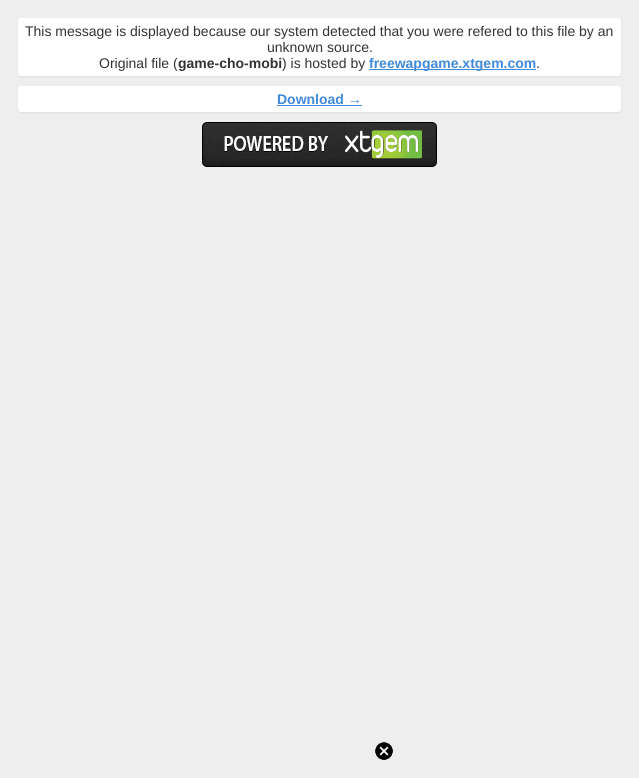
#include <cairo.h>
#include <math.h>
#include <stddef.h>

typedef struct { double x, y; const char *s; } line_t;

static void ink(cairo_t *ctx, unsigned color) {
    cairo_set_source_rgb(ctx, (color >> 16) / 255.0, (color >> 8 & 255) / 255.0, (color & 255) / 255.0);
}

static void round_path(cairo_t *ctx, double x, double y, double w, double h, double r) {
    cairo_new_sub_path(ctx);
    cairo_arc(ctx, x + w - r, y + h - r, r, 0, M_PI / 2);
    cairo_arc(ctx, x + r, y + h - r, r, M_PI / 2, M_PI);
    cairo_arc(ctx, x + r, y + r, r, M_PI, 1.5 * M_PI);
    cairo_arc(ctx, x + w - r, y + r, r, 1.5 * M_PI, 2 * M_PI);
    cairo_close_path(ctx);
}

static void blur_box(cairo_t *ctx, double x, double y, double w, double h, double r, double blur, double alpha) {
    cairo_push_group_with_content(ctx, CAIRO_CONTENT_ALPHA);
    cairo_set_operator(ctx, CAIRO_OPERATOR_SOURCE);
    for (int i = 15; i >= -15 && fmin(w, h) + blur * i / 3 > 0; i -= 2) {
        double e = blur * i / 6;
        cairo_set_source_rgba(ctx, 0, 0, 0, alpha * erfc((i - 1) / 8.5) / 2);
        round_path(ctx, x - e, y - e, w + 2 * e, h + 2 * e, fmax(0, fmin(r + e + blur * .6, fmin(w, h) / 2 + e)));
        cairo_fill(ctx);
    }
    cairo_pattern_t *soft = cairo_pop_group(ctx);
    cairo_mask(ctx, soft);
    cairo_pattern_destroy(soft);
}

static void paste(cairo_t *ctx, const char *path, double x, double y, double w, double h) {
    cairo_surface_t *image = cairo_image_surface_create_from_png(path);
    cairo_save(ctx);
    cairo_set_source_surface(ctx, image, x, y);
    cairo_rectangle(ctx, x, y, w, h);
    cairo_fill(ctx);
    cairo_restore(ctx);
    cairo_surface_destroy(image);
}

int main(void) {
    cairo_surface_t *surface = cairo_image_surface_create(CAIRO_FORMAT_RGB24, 639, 778);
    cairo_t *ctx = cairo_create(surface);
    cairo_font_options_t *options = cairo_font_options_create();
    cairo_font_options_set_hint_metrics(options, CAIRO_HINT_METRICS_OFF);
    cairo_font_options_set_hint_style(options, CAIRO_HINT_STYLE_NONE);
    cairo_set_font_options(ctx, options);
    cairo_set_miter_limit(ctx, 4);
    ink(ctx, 0xEEEEEE);
    cairo_paint(ctx);
    ink(ctx, 0x000000);
    blur_box(ctx, 18, 19, 603, 58, 3, 1, 0.07);
    ink(ctx, 0xFFFFFF);
    round_path(ctx, 18, 18, 603, 58, 3);
    cairo_fill(ctx);
    cairo_select_font_face(ctx, "Liberation Sans", CAIRO_FONT_SLANT_NORMAL, CAIRO_FONT_WEIGHT_NORMAL);
    cairo_set_font_size(ctx, 14);
    ink(ctx, 0x333333);
    {
        static const line_t items[] = {
            {25, 36, "This message is displayed because our system detected that you were refered to this file by an"},
            {267, 52, "unknown source."},
            {99, 68, "Original file ("},
        };
        for (size_t i = 0; i < sizeof items / sizeof *items; i++) {
            cairo_move_to(ctx, items[i].x, items[i].y);
            cairo_show_text(ctx, items[i].s);
        }
    }
    cairo_select_font_face(ctx, "Liberation Sans", CAIRO_FONT_SLANT_NORMAL, CAIRO_FONT_WEIGHT_BOLD);
    cairo_move_to(ctx, 178, 68);
    cairo_show_text(ctx, "game-cho-mobi");
    cairo_select_font_face(ctx, "Liberation Sans", CAIRO_FONT_SLANT_NORMAL, CAIRO_FONT_WEIGHT_NORMAL);
    cairo_move_to(ctx, 282, 68);
    cairo_show_text(ctx, ") is hosted by");
    ink(ctx, 0x4089DB);
    cairo_rectangle(ctx, 369, 69, 167, 1);
    cairo_fill(ctx);
    cairo_select_font_face(ctx, "Liberation Sans", CAIRO_FONT_SLANT_NORMAL, CAIRO_FONT_WEIGHT_BOLD);
    cairo_move_to(ctx, 369, 68);
    cairo_show_text(ctx, "freewapgame.xtgem.com");
    cairo_select_font_face(ctx, "Liberation Sans", CAIRO_FONT_SLANT_NORMAL, CAIRO_FONT_WEIGHT_NORMAL);
    ink(ctx, 0x333333);
    cairo_move_to(ctx, 536, 68);
    cairo_show_text(ctx, ".");
    ink(ctx, 0x000000);
    blur_box(ctx, 18, 87, 603, 26, 3, 1, 0.07);
    ink(ctx, 0xFFFFFF);
    round_path(ctx, 18, 86, 603, 26, 3);
    cairo_fill(ctx);
    cairo_select_font_face(ctx, "Liberation Sans", CAIRO_FONT_SLANT_NORMAL, CAIRO_FONT_WEIGHT_BOLD);
    ink(ctx, 0x4089DB);
    cairo_move_to(ctx, 277, 104);
    cairo_show_text(ctx, "Download →");
    cairo_rectangle(ctx, 277, 105, 85, 1);
    cairo_fill(ctx);
    paste(ctx, "media/1.png", 202, 122, 235, 45);
    paste(ctx, "media/2.png", 375, 742, 18, 18);
    cairo_surface_write_to_png(surface, "image.png");
    cairo_font_options_destroy(options);
    cairo_destroy(ctx);
    cairo_surface_destroy(surface);
    return 0;
}
